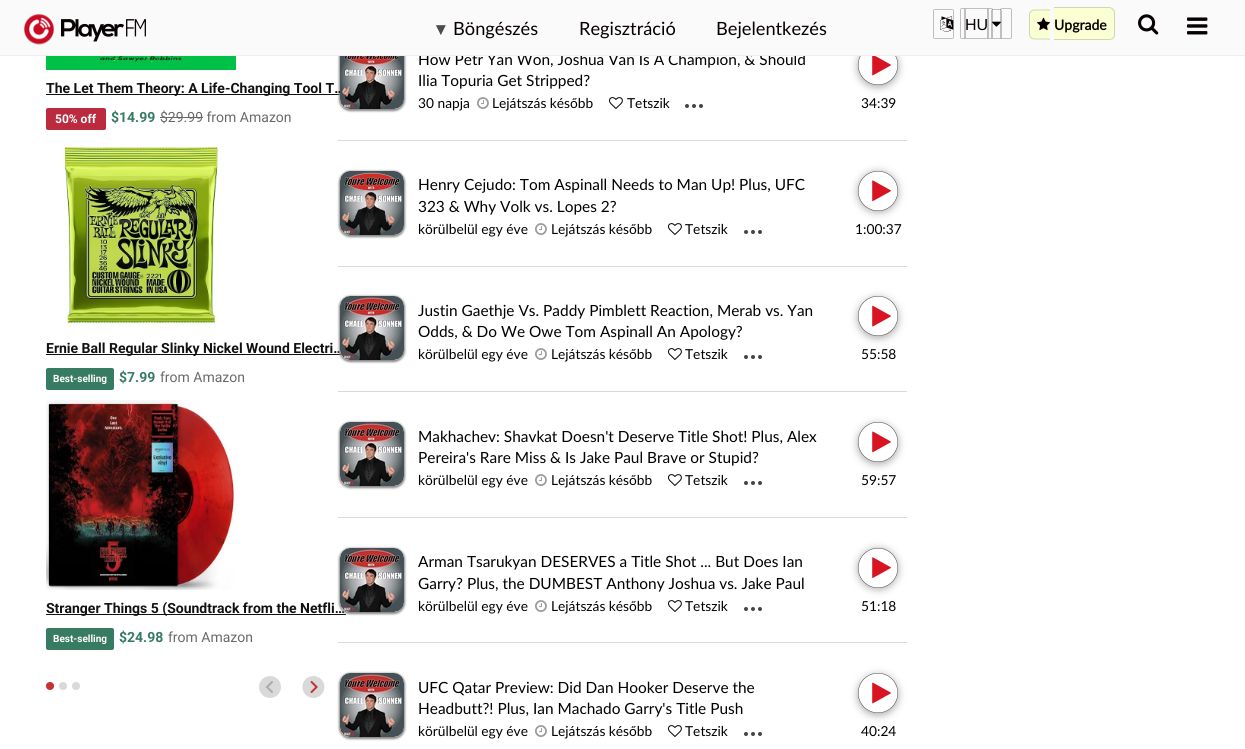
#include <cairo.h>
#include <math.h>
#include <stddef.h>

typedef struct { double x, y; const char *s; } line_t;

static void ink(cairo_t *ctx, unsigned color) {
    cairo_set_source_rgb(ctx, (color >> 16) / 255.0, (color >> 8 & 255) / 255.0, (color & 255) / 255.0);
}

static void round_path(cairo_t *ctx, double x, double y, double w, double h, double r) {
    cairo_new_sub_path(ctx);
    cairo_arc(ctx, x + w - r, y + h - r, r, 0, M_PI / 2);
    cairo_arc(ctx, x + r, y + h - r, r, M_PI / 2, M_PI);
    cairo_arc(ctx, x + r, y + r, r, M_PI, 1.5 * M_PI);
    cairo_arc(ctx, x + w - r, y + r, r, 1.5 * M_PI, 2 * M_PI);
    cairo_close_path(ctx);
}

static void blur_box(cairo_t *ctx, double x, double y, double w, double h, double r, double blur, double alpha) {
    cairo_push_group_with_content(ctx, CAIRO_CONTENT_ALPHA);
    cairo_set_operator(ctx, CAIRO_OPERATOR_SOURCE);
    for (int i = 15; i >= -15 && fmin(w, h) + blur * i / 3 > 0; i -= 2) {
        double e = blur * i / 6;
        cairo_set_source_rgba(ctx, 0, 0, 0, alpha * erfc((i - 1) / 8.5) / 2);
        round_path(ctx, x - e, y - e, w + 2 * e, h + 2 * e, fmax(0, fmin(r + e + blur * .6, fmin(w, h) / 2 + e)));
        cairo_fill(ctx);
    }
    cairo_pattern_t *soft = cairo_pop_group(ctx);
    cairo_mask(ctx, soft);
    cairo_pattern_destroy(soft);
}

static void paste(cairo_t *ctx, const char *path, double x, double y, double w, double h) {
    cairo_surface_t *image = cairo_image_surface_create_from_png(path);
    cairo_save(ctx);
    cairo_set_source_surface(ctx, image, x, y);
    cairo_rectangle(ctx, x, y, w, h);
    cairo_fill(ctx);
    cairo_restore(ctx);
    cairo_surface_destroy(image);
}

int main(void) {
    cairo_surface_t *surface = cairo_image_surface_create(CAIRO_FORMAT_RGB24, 1245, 749);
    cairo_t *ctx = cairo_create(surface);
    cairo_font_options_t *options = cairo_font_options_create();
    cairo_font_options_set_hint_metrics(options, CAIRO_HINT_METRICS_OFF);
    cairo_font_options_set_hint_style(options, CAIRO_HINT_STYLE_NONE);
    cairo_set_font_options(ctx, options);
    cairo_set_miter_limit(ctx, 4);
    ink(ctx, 0xFFFFFF);
    cairo_paint(ctx);
    ink(ctx, 0x111111);
    cairo_rectangle(ctx, 46, 94, 300, 1);
    cairo_fill(ctx);
    ink(ctx, 0x888888);
    blur_box(ctx, 339, 45, 66, 66, 11, 1, 1);
    cairo_select_font_face(ctx, "Roboto", CAIRO_FONT_SLANT_NORMAL, CAIRO_FONT_WEIGHT_BOLD);
    cairo_set_font_size(ctx, 14);
    ink(ctx, 0x111111);
    cairo_move_to(ctx, 46, 93);
    cairo_show_text(ctx, "The Let Them Theory: A Life-Changing Tool T…");
    ink(ctx, 0xFFFFFF);
    round_path(ctx, 340, 45, 64, 64, 10);
    cairo_fill(ctx);
    cairo_select_font_face(ctx, "Lato", CAIRO_FONT_SLANT_NORMAL, CAIRO_FONT_WEIGHT_NORMAL);
    cairo_set_font_size(ctx, 15.4);
    ink(ctx, 0x000000);
    cairo_move_to(ctx, 418, 65);
    cairo_show_text(ctx, "How Petr Yan Won, Joshua Van Is A Champion, & Should");
    cairo_save(ctx);
    cairo_set_fill_rule(ctx, CAIRO_FILL_RULE_EVEN_ODD);
    cairo_new_path(ctx);
    cairo_move_to(ctx, 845, 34);
    cairo_line_to(ctx, 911, 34);
    cairo_line_to(ctx, 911, 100);
    cairo_line_to(ctx, 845, 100);
    cairo_close_path(ctx);
    cairo_move_to(ctx, 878, 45);
    cairo_curve_to(ctx, 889, 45, 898, 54, 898, 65);
    cairo_curve_to(ctx, 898, 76, 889, 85, 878, 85);
    cairo_curve_to(ctx, 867, 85, 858, 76, 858, 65);
    cairo_curve_to(ctx, 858, 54, 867, 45, 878, 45);
    cairo_close_path(ctx);
    cairo_clip(ctx);
    ink(ctx, 0xAAAAAA);
    blur_box(ctx, 858, 47, 40, 40, 20, 4, 1);
    cairo_restore(ctx);
    cairo_arc(ctx, 878, 65, 19.8, 0, 2 * M_PI);
    ink(ctx, 0x111111);
    cairo_set_line_width(ctx, 0.4);
    cairo_stroke(ctx);
    ink(ctx, 0xFBFAFA);
    cairo_rectangle(ctx, 0, 0, 1245, 55);
    cairo_fill(ctx);
    ink(ctx, 0xEEEEEE);
    cairo_rectangle(ctx, 0, 55, 1245, 1);
    cairo_fill(ctx);
    paste(ctx, "media/1.png", 24, 14, 30, 31);
    paste(ctx, "media/2.png", 61, 19, 85, 23);
    cairo_select_font_face(ctx, "DejaVu Sans", CAIRO_FONT_SLANT_NORMAL, CAIRO_FONT_WEIGHT_BOLD);
    cairo_set_font_size(ctx, 18.25);
    ink(ctx, 0x504B4B);
    cairo_move_to(ctx, 436, 35);
    cairo_show_text(ctx, "▾");
    cairo_select_font_face(ctx, "Lato", CAIRO_FONT_SLANT_NORMAL, CAIRO_FONT_WEIGHT_NORMAL);
    ink(ctx, 0x060000);
    {
        static const line_t items[] = {
            {453, 35, "Böngészés"},
            {579, 35, "Regisztráció"},
            {716, 35, "Bejelentkezés"},
        };
        for (size_t i = 0; i < sizeof items / sizeof *items; i++) {
            cairo_move_to(ctx, items[i].x, items[i].y);
            cairo_show_text(ctx, items[i].s);
        }
    }
    cairo_save(ctx);
    cairo_set_fill_rule(ctx, CAIRO_FILL_RULE_EVEN_ODD);
    cairo_new_path(ctx);
    cairo_move_to(ctx, 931, 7);
    cairo_line_to(ctx, 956, 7);
    cairo_line_to(ctx, 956, 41);
    cairo_line_to(ctx, 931, 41);
    cairo_close_path(ctx);
    cairo_move_to(ctx, 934, 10);
    cairo_line_to(ctx, 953, 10);
    cairo_line_to(ctx, 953, 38);
    cairo_line_to(ctx, 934, 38);
    cairo_close_path(ctx);
    cairo_clip(ctx);
    ink(ctx, 0x111111);
    blur_box(ctx, 934, 10, 19, 28, 0, 0.5, 1);
    cairo_restore(ctx);
    cairo_save(ctx);
    cairo_set_fill_rule(ctx, CAIRO_FILL_RULE_EVEN_ODD);
    cairo_new_path(ctx);
    cairo_move_to(ctx, 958, 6);
    cairo_line_to(ctx, 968, 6);
    cairo_line_to(ctx, 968, 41);
    cairo_line_to(ctx, 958, 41);
    cairo_close_path(ctx);
    cairo_move_to(ctx, 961, 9);
    cairo_line_to(ctx, 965, 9);
    cairo_line_to(ctx, 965, 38);
    cairo_line_to(ctx, 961, 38);
    cairo_close_path(ctx);
    cairo_clip(ctx);
    ink(ctx, 0x111111);
    blur_box(ctx, 961, 9, 4, 29, 0, 0.5, 1);
    cairo_restore(ctx);
    cairo_save(ctx);
    cairo_set_fill_rule(ctx, CAIRO_FILL_RULE_EVEN_ODD);
    cairo_new_path(ctx);
    cairo_move_to(ctx, 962, 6);
    cairo_line_to(ctx, 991, 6);
    cairo_line_to(ctx, 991, 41);
    cairo_line_to(ctx, 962, 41);
    cairo_close_path(ctx);
    cairo_move_to(ctx, 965, 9);
    cairo_line_to(ctx, 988, 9);
    cairo_line_to(ctx, 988, 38);
    cairo_line_to(ctx, 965, 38);
    cairo_close_path(ctx);
    cairo_clip(ctx);
    ink(ctx, 0x111111);
    blur_box(ctx, 965, 9, 23, 29, 0, 0.5, 1);
    cairo_restore(ctx);
    cairo_save(ctx);
    cairo_set_fill_rule(ctx, CAIRO_FILL_RULE_EVEN_ODD);
    cairo_new_path(ctx);
    cairo_move_to(ctx, 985, 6);
    cairo_line_to(ctx, 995, 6);
    cairo_line_to(ctx, 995, 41);
    cairo_line_to(ctx, 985, 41);
    cairo_close_path(ctx);
    cairo_move_to(ctx, 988, 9);
    cairo_line_to(ctx, 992, 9);
    cairo_line_to(ctx, 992, 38);
    cairo_line_to(ctx, 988, 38);
    cairo_close_path(ctx);
    cairo_clip(ctx);
    ink(ctx, 0x111111);
    blur_box(ctx, 988, 9, 4, 29, 0, 0.5, 1);
    cairo_restore(ctx);
    cairo_save(ctx);
    cairo_set_fill_rule(ctx, CAIRO_FILL_RULE_EVEN_ODD);
    cairo_new_path(ctx);
    cairo_move_to(ctx, 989, 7);
    cairo_line_to(ctx, 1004, 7);
    cairo_line_to(ctx, 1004, 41);
    cairo_line_to(ctx, 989, 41);
    cairo_close_path(ctx);
    cairo_move_to(ctx, 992, 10);
    cairo_line_to(ctx, 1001, 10);
    cairo_line_to(ctx, 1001, 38);
    cairo_line_to(ctx, 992, 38);
    cairo_close_path(ctx);
    cairo_clip(ctx);
    ink(ctx, 0x111111);
    blur_box(ctx, 992, 10, 9, 28, 0, 0.5, 1);
    cairo_restore(ctx);
    cairo_save(ctx);
    cairo_set_fill_rule(ctx, CAIRO_FILL_RULE_EVEN_ODD);
    cairo_new_path(ctx);
    cairo_move_to(ctx, 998, 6);
    cairo_line_to(ctx, 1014, 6);
    cairo_line_to(ctx, 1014, 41);
    cairo_line_to(ctx, 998, 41);
    cairo_close_path(ctx);
    cairo_move_to(ctx, 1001, 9);
    cairo_line_to(ctx, 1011, 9);
    cairo_line_to(ctx, 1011, 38);
    cairo_line_to(ctx, 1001, 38);
    cairo_close_path(ctx);
    cairo_clip(ctx);
    ink(ctx, 0x111111);
    blur_box(ctx, 1001, 9, 10, 29, 0, 0.5, 1);
    cairo_restore(ctx);
    paste(ctx, "media/3.png", 940, 16, 14, 16);
    cairo_select_font_face(ctx, "Liberation Sans", CAIRO_FONT_SLANT_NORMAL, CAIRO_FONT_WEIGHT_NORMAL);
    cairo_set_font_size(ctx, 16);
    cairo_move_to(ctx, 965, 30);
    cairo_show_text(ctx, "HU");
    paste(ctx, "media/4.png", 992, 21, 9, 6);
    ink(ctx, 0xFAFFD4);
    cairo_new_path(ctx);
    cairo_move_to(ctx, 1035, 9);
    cairo_line_to(ctx, 1050, 9);
    cairo_line_to(ctx, 1050, 39);
    cairo_line_to(ctx, 1035, 39);
    cairo_curve_to(ctx, 1031.5, 39, 1029, 36.5, 1029, 33);
    cairo_line_to(ctx, 1029, 15);
    cairo_curve_to(ctx, 1029, 11.5, 1031.5, 9, 1035, 9);
    cairo_close_path(ctx);
    cairo_fill(ctx);
    ink(ctx, 0xD1D6AF);
    cairo_set_fill_rule(ctx, CAIRO_FILL_RULE_EVEN_ODD);
    cairo_new_path(ctx);
    cairo_move_to(ctx, 1034.5, 9.5);
    cairo_line_to(ctx, 1050, 9.5);
    cairo_line_to(ctx, 1050, 39.5);
    cairo_line_to(ctx, 1034.5, 39.5);
    cairo_curve_to(ctx, 1031.5, 39.5, 1029, 37, 1029, 34);
    cairo_line_to(ctx, 1029, 15);
    cairo_curve_to(ctx, 1029, 12, 1031.5, 9.5, 1034.5, 9.5);
    cairo_close_path(ctx);
    cairo_move_to(ctx, 1034.5, 10.5);
    cairo_line_to(ctx, 1050, 10.5);
    cairo_line_to(ctx, 1050, 38.5);
    cairo_line_to(ctx, 1034.5, 38.5);
    cairo_curve_to(ctx, 1032, 38.5, 1030, 36.5, 1030, 34);
    cairo_line_to(ctx, 1030, 15);
    cairo_curve_to(ctx, 1030, 12.5, 1032, 10.5, 1034.5, 10.5);
    cairo_close_path(ctx);
    cairo_fill(ctx);
    ink(ctx, 0xFAFFD4);
    cairo_new_path(ctx);
    cairo_move_to(ctx, 1054, 7);
    cairo_line_to(ctx, 1109, 7);
    cairo_curve_to(ctx, 1112.5, 7, 1115, 9.5, 1115, 13);
    cairo_line_to(ctx, 1115, 34);
    cairo_curve_to(ctx, 1115, 37.5, 1112.5, 40, 1109, 40);
    cairo_line_to(ctx, 1054, 40);
    cairo_close_path(ctx);
    cairo_fill(ctx);
    ink(ctx, 0xD1D6AF);
    cairo_new_path(ctx);
    cairo_move_to(ctx, 1054, 7);
    cairo_line_to(ctx, 1109, 7);
    cairo_curve_to(ctx, 1112, 7, 1115, 10, 1115, 13);
    cairo_line_to(ctx, 1115, 35);
    cairo_curve_to(ctx, 1115, 38, 1112, 40, 1109, 40);
    cairo_line_to(ctx, 1054, 40);
    cairo_close_path(ctx);
    cairo_move_to(ctx, 1054, 8);
    cairo_line_to(ctx, 1109, 8);
    cairo_curve_to(ctx, 1112, 8, 1114, 11, 1114, 13);
    cairo_line_to(ctx, 1114, 35);
    cairo_curve_to(ctx, 1114, 37, 1112, 39, 1109, 39);
    cairo_line_to(ctx, 1054, 39);
    cairo_close_path(ctx);
    cairo_fill(ctx);
    paste(ctx, "media/5.png", 1037, 17, 13, 14);
    cairo_select_font_face(ctx, "Lato", CAIRO_FONT_SLANT_NORMAL, CAIRO_FONT_WEIGHT_BOLD);
    cairo_set_font_size(ctx, 14);
    ink(ctx, 0x060000);
    cairo_move_to(ctx, 1054, 30);
    cairo_show_text(ctx, "Upgrade");
    paste(ctx, "media/6.png", 1138, 14, 21, 21);
    paste(ctx, "media/7.png", 1187, 17, 21, 18);
    paste(ctx, "media/8.png", 46, 56, 190, 14);
    ink(ctx, 0xBB2A3E);
    round_path(ctx, 46, 108, 60, 22, 2);
    cairo_fill(ctx);
    cairo_select_font_face(ctx, "Roboto", CAIRO_FONT_SLANT_NORMAL, CAIRO_FONT_WEIGHT_BOLD);
    cairo_set_font_size(ctx, 12);
    ink(ctx, 0xFFFFFF);
    cairo_move_to(ctx, 55, 123);
    cairo_show_text(ctx, "50% off");
    cairo_set_font_size(ctx, 14);
    ink(ctx, 0x377B63);
    cairo_move_to(ctx, 111, 122);
    cairo_show_text(ctx, "$14.99");
    cairo_select_font_face(ctx, "Roboto", CAIRO_FONT_SLANT_NORMAL, CAIRO_FONT_WEIGHT_NORMAL);
    ink(ctx, 0x696969);
    cairo_move_to(ctx, 160, 122);
    cairo_show_text(ctx, "$29.99 from Amazon");
    cairo_rectangle(ctx, 160, 117, 43, 1);
    cairo_fill(ctx);
    paste(ctx, "media/9.png", 64, 146, 157, 182);
    ink(ctx, 0x111111);
    cairo_rectangle(ctx, 46, 354, 300, 1);
    cairo_fill(ctx);
    cairo_select_font_face(ctx, "Roboto", CAIRO_FONT_SLANT_NORMAL, CAIRO_FONT_WEIGHT_BOLD);
    cairo_move_to(ctx, 46, 353);
    cairo_show_text(ctx, "Ernie Ball Regular Slinky Nickel Wound Electri…");
    ink(ctx, 0x377B63);
    round_path(ctx, 46, 368, 68, 22, 2);
    cairo_fill(ctx);
    cairo_set_font_size(ctx, 10);
    ink(ctx, 0xFFFFFF);
    cairo_move_to(ctx, 53, 382);
    cairo_show_text(ctx, "Best-selling");
    cairo_set_font_size(ctx, 14);
    ink(ctx, 0x377B63);
    cairo_move_to(ctx, 119, 382);
    cairo_show_text(ctx, "$7.99");
    cairo_select_font_face(ctx, "Roboto", CAIRO_FONT_SLANT_NORMAL, CAIRO_FONT_WEIGHT_NORMAL);
    ink(ctx, 0x696969);
    cairo_move_to(ctx, 160, 382);
    cairo_show_text(ctx, "from Amazon");
    paste(ctx, "media/10.png", 46, 400, 189, 190);
    ink(ctx, 0x111111);
    cairo_rectangle(ctx, 46, 614, 300, 1);
    cairo_fill(ctx);
    cairo_select_font_face(ctx, "Roboto", CAIRO_FONT_SLANT_NORMAL, CAIRO_FONT_WEIGHT_BOLD);
    cairo_move_to(ctx, 46, 613);
    cairo_show_text(ctx, "Stranger Things 5 (Soundtrack from the Netfli…");
    ink(ctx, 0x377B63);
    round_path(ctx, 46, 628, 68, 22, 2);
    cairo_fill(ctx);
    cairo_set_font_size(ctx, 10);
    ink(ctx, 0xFFFFFF);
    cairo_move_to(ctx, 53, 642);
    cairo_show_text(ctx, "Best-selling");
    cairo_set_font_size(ctx, 14);
    ink(ctx, 0x377B63);
    cairo_move_to(ctx, 119, 642);
    cairo_show_text(ctx, "$24.98");
    cairo_select_font_face(ctx, "Roboto", CAIRO_FONT_SLANT_NORMAL, CAIRO_FONT_WEIGHT_NORMAL);
    ink(ctx, 0x696969);
    cairo_move_to(ctx, 168, 642);
    cairo_show_text(ctx, "from Amazon");
    ink(ctx, 0xC6302E);
    cairo_new_path(ctx);
    cairo_arc(ctx, 50, 686, 4, 0, 2 * M_PI);
    cairo_fill(ctx);
    ink(ctx, 0xD9D9D9);
    cairo_arc(ctx, 63, 686, 4, 0, 2 * M_PI);
    cairo_fill(ctx);
    cairo_arc(ctx, 76, 686, 4, 0, 2 * M_PI);
    cairo_fill(ctx);
    cairo_arc(ctx, 270, 687, 11, 0, 2 * M_PI);
    cairo_fill(ctx);
    cairo_new_path(ctx);
    cairo_move_to(ctx, 272, 682);
    cairo_line_to(ctx, 267, 687);
    cairo_line_to(ctx, 272, 692);
    ink(ctx, 0xABABAB);
    cairo_set_line_width(ctx, 2);
    cairo_set_line_cap(ctx, CAIRO_LINE_CAP_ROUND);
    cairo_stroke(ctx);
    paste(ctx, "media/11.png", 302, 676, 23, 22);
    paste(ctx, "media/12.png", 340, 56, 64, 53);
    cairo_select_font_face(ctx, "Lato", CAIRO_FONT_SLANT_NORMAL, CAIRO_FONT_WEIGHT_NORMAL);
    cairo_set_font_size(ctx, 15.4);
    ink(ctx, 0x000000);
    cairo_move_to(ctx, 418, 86);
    cairo_show_text(ctx, "Ilia Topuria Get Stripped?");
    paste(ctx, "media/13.png", 872, 56, 19, 20);
    cairo_set_font_size(ctx, 13.75);
    cairo_move_to(ctx, 418, 108);
    cairo_show_text(ctx, "30 napja");
    paste(ctx, "media/14.png", 477, 97, 12, 12);
    cairo_move_to(ctx, 492, 108);
    cairo_show_text(ctx, "Lejátszás később");
    paste(ctx, "media/15.png", 609, 97, 14, 12);
    cairo_move_to(ctx, 627, 108);
    cairo_show_text(ctx, "Tetszik");
    ink(ctx, 0x444444);
    cairo_new_path(ctx);
    cairo_arc(ctx, 687, 106, 2, 0, 2 * M_PI);
    cairo_fill(ctx);
    cairo_arc(ctx, 694, 106, 2, 0, 2 * M_PI);
    cairo_fill(ctx);
    cairo_arc(ctx, 701, 106, 2, 0, 2 * M_PI);
    cairo_fill(ctx);
    ink(ctx, 0x000000);
    cairo_move_to(ctx, 861, 108);
    cairo_show_text(ctx, "34:39");
    ink(ctx, 0xD9D9D9);
    cairo_rectangle(ctx, 338, 140, 569, 1);
    cairo_fill(ctx);
    ink(ctx, 0x888888);
    blur_box(ctx, 339, 171, 66, 66, 11, 1, 1);
    ink(ctx, 0xFFFFFF);
    round_path(ctx, 340, 171, 64, 64, 10);
    cairo_fill(ctx);
    paste(ctx, "media/16.png", 340, 171, 64, 64);
    cairo_set_font_size(ctx, 15.4);
    ink(ctx, 0x000000);
    cairo_move_to(ctx, 418, 190);
    cairo_show_text(ctx, "Henry Cejudo: Tom Aspinall Needs to Man Up! Plus, UFC");
    cairo_move_to(ctx, 418, 212);
    cairo_show_text(ctx, "323 & Why Volk vs. Lopes 2?");
    cairo_save(ctx);
    cairo_new_path(ctx);
    cairo_move_to(ctx, 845, 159);
    cairo_line_to(ctx, 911, 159);
    cairo_line_to(ctx, 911, 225);
    cairo_line_to(ctx, 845, 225);
    cairo_close_path(ctx);
    cairo_move_to(ctx, 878, 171);
    cairo_curve_to(ctx, 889, 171, 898, 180, 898, 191);
    cairo_curve_to(ctx, 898, 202, 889, 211, 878, 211);
    cairo_curve_to(ctx, 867, 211, 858, 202, 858, 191);
    cairo_curve_to(ctx, 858, 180, 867, 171, 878, 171);
    cairo_close_path(ctx);
    cairo_clip(ctx);
    ink(ctx, 0xAAAAAA);
    blur_box(ctx, 858, 172, 40, 40, 20, 4, 1);
    cairo_restore(ctx);
    cairo_arc(ctx, 878, 191, 19.8, 0, 2 * M_PI);
    ink(ctx, 0x111111);
    cairo_set_line_width(ctx, 0.4);
    cairo_set_line_cap(ctx, CAIRO_LINE_CAP_BUTT);
    cairo_stroke(ctx);
    paste(ctx, "media/17.png", 872, 180, 19, 22);
    cairo_set_font_size(ctx, 13.75);
    ink(ctx, 0x000000);
    cairo_move_to(ctx, 418, 234);
    cairo_show_text(ctx, "körülbelül egy éve");
    paste(ctx, "media/14.png", 535, 223, 12, 12);
    cairo_move_to(ctx, 551, 234);
    cairo_show_text(ctx, "Lejátszás később");
    paste(ctx, "media/15.png", 668, 223, 14, 12);
    cairo_move_to(ctx, 685, 234);
    cairo_show_text(ctx, "Tetszik");
    ink(ctx, 0x444444);
    cairo_new_path(ctx);
    cairo_arc(ctx, 746, 232, 2, 0, 2 * M_PI);
    cairo_fill(ctx);
    cairo_arc(ctx, 753, 232, 2, 0, 2 * M_PI);
    cairo_fill(ctx);
    cairo_arc(ctx, 760, 232, 2, 0, 2 * M_PI);
    cairo_fill(ctx);
    ink(ctx, 0x000000);
    cairo_move_to(ctx, 855, 234);
    cairo_show_text(ctx, "1:00:37");
    ink(ctx, 0xD9D9D9);
    cairo_rectangle(ctx, 338, 266, 569, 1);
    cairo_fill(ctx);
    ink(ctx, 0x888888);
    blur_box(ctx, 339, 296, 66, 66, 11, 1, 1);
    ink(ctx, 0xFFFFFF);
    round_path(ctx, 340, 296, 64, 64, 10);
    cairo_fill(ctx);
    paste(ctx, "media/18.png", 340, 296, 64, 64);
    cairo_set_font_size(ctx, 15.4);
    ink(ctx, 0x000000);
    cairo_move_to(ctx, 418, 316);
    cairo_show_text(ctx, "Justin Gaethje Vs. Paddy Pimblett Reaction, Merab vs. Yan");
    cairo_move_to(ctx, 418, 337);
    cairo_show_text(ctx, "Odds, & Do We Owe Tom Aspinall An Apology?");
    cairo_save(ctx);
    cairo_new_path(ctx);
    cairo_move_to(ctx, 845, 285);
    cairo_line_to(ctx, 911, 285);
    cairo_line_to(ctx, 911, 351);
    cairo_line_to(ctx, 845, 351);
    cairo_close_path(ctx);
    cairo_move_to(ctx, 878, 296);
    cairo_curve_to(ctx, 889, 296, 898, 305, 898, 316);
    cairo_curve_to(ctx, 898, 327, 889, 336, 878, 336);
    cairo_curve_to(ctx, 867, 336, 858, 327, 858, 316);
    cairo_curve_to(ctx, 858, 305, 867, 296, 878, 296);
    cairo_close_path(ctx);
    cairo_clip(ctx);
    ink(ctx, 0xAAAAAA);
    blur_box(ctx, 858, 298, 40, 40, 20, 4, 1);
    cairo_restore(ctx);
    cairo_arc(ctx, 878, 316, 19.8, 0, 2 * M_PI);
    ink(ctx, 0x111111);
    cairo_stroke(ctx);
    paste(ctx, "media/19.png", 872, 305, 19, 22);
    cairo_set_font_size(ctx, 13.75);
    ink(ctx, 0x000000);
    cairo_move_to(ctx, 418, 359);
    cairo_show_text(ctx, "körülbelül egy éve");
    paste(ctx, "media/14.png", 535, 348, 12, 12);
    cairo_move_to(ctx, 551, 359);
    cairo_show_text(ctx, "Lejátszás később");
    paste(ctx, "media/15.png", 668, 348, 14, 12);
    cairo_move_to(ctx, 685, 359);
    cairo_show_text(ctx, "Tetszik");
    ink(ctx, 0x444444);
    cairo_new_path(ctx);
    cairo_arc(ctx, 746, 357, 2, 0, 2 * M_PI);
    cairo_fill(ctx);
    cairo_arc(ctx, 753, 357, 2, 0, 2 * M_PI);
    cairo_fill(ctx);
    cairo_arc(ctx, 760, 357, 2, 0, 2 * M_PI);
    cairo_fill(ctx);
    ink(ctx, 0x000000);
    cairo_move_to(ctx, 861, 359);
    cairo_show_text(ctx, "55:58");
    ink(ctx, 0xD9D9D9);
    cairo_rectangle(ctx, 338, 391, 569, 1);
    cairo_fill(ctx);
    ink(ctx, 0x888888);
    blur_box(ctx, 339, 422, 66, 66, 11, 1, 1);
    ink(ctx, 0xFFFFFF);
    round_path(ctx, 340, 422, 64, 64, 10);
    cairo_fill(ctx);
    paste(ctx, "media/20.png", 340, 422, 64, 64);
    cairo_set_font_size(ctx, 15.4);
    ink(ctx, 0x000000);
    cairo_move_to(ctx, 418, 442);
    cairo_show_text(ctx, "Makhachev: Shavkat Doesn't Deserve Title Shot! Plus, Alex");
    cairo_move_to(ctx, 418, 463);
    cairo_show_text(ctx, "Pereira's Rare Miss & Is Jake Paul Brave or Stupid?");
    cairo_save(ctx);
    cairo_new_path(ctx);
    cairo_move_to(ctx, 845, 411);
    cairo_line_to(ctx, 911, 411);
    cairo_line_to(ctx, 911, 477);
    cairo_line_to(ctx, 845, 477);
    cairo_close_path(ctx);
    cairo_move_to(ctx, 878, 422);
    cairo_curve_to(ctx, 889, 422, 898, 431, 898, 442);
    cairo_curve_to(ctx, 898, 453, 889, 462, 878, 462);
    cairo_curve_to(ctx, 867, 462, 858, 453, 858, 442);
    cairo_curve_to(ctx, 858, 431, 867, 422, 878, 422);
    cairo_close_path(ctx);
    cairo_clip(ctx);
    ink(ctx, 0xAAAAAA);
    blur_box(ctx, 858, 424, 40, 40, 20, 4, 1);
    cairo_restore(ctx);
    cairo_arc(ctx, 878, 442, 19.8, 0, 2 * M_PI);
    ink(ctx, 0x111111);
    cairo_stroke(ctx);
    paste(ctx, "media/21.png", 872, 431, 19, 22);
    cairo_set_font_size(ctx, 13.75);
    ink(ctx, 0x000000);
    cairo_move_to(ctx, 418, 485);
    cairo_show_text(ctx, "körülbelül egy éve");
    paste(ctx, "media/14.png", 535, 474, 12, 12);
    cairo_move_to(ctx, 551, 485);
    cairo_show_text(ctx, "Lejátszás később");
    paste(ctx, "media/15.png", 668, 474, 14, 12);
    cairo_move_to(ctx, 685, 485);
    cairo_show_text(ctx, "Tetszik");
    ink(ctx, 0x444444);
    cairo_new_path(ctx);
    cairo_arc(ctx, 746, 483, 2, 0, 2 * M_PI);
    cairo_fill(ctx);
    cairo_arc(ctx, 753, 483, 2, 0, 2 * M_PI);
    cairo_fill(ctx);
    cairo_arc(ctx, 760, 483, 2, 0, 2 * M_PI);
    cairo_fill(ctx);
    ink(ctx, 0x000000);
    cairo_move_to(ctx, 861, 485);
    cairo_show_text(ctx, "59:57");
    ink(ctx, 0xD9D9D9);
    cairo_rectangle(ctx, 338, 517, 569, 1);
    cairo_fill(ctx);
    ink(ctx, 0x888888);
    blur_box(ctx, 339, 548, 66, 66, 11, 1, 1);
    ink(ctx, 0xFFFFFF);
    round_path(ctx, 340, 548, 64, 64, 10);
    cairo_fill(ctx);
    paste(ctx, "media/22.png", 340, 548, 64, 64);
    cairo_set_font_size(ctx, 15.4);
    ink(ctx, 0x000000);
    cairo_move_to(ctx, 418, 567);
    cairo_show_text(ctx, "Arman Tsarukyan DESERVES a Title Shot ... But Does Ian");
    cairo_move_to(ctx, 418, 589);
    cairo_show_text(ctx, "Garry? Plus, the DUMBEST Anthony Joshua vs. Jake Paul");
    cairo_save(ctx);
    cairo_new_path(ctx);
    cairo_move_to(ctx, 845, 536);
    cairo_line_to(ctx, 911, 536);
    cairo_line_to(ctx, 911, 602);
    cairo_line_to(ctx, 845, 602);
    cairo_close_path(ctx);
    cairo_move_to(ctx, 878, 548);
    cairo_curve_to(ctx, 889, 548, 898, 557, 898, 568);
    cairo_curve_to(ctx, 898, 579, 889, 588, 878, 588);
    cairo_curve_to(ctx, 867, 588, 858, 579, 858, 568);
    cairo_curve_to(ctx, 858, 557, 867, 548, 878, 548);
    cairo_close_path(ctx);
    cairo_clip(ctx);
    ink(ctx, 0xAAAAAA);
    blur_box(ctx, 858, 549, 40, 40, 20, 4, 1);
    cairo_restore(ctx);
    cairo_arc(ctx, 878, 568, 19.8, 0, 2 * M_PI);
    ink(ctx, 0x111111);
    cairo_stroke(ctx);
    paste(ctx, "media/23.png", 872, 557, 19, 21);
    cairo_set_font_size(ctx, 13.75);
    ink(ctx, 0x000000);
    cairo_move_to(ctx, 418, 611);
    cairo_show_text(ctx, "körülbelül egy éve");
    paste(ctx, "media/14.png", 535, 600, 12, 12);
    cairo_move_to(ctx, 551, 611);
    cairo_show_text(ctx, "Lejátszás később");
    paste(ctx, "media/15.png", 668, 600, 14, 12);
    cairo_move_to(ctx, 685, 611);
    cairo_show_text(ctx, "Tetszik");
    ink(ctx, 0x444444);
    cairo_new_path(ctx);
    cairo_arc(ctx, 746, 609, 2, 0, 2 * M_PI);
    cairo_fill(ctx);
    cairo_arc(ctx, 753, 609, 2, 0, 2 * M_PI);
    cairo_fill(ctx);
    cairo_arc(ctx, 760, 609, 2, 0, 2 * M_PI);
    cairo_fill(ctx);
    ink(ctx, 0x000000);
    cairo_move_to(ctx, 861, 611);
    cairo_show_text(ctx, "51:18");
    ink(ctx, 0xD9D9D9);
    cairo_rectangle(ctx, 338, 642, 569, 1);
    cairo_fill(ctx);
    ink(ctx, 0x888888);
    blur_box(ctx, 339, 673, 66, 66, 11, 1, 1);
    ink(ctx, 0xFFFFFF);
    round_path(ctx, 340, 673, 64, 64, 10);
    cairo_fill(ctx);
    paste(ctx, "media/20.png", 340, 673, 64, 64);
    cairo_set_font_size(ctx, 15.4);
    ink(ctx, 0x000000);
    cairo_move_to(ctx, 418, 693);
    cairo_show_text(ctx, "UFC Qatar Preview: Did Dan Hooker Deserve the");
    cairo_move_to(ctx, 418, 714);
    cairo_show_text(ctx, "Headbutt?! Plus, Ian Machado Garry's Title Push");
    cairo_save(ctx);
    cairo_new_path(ctx);
    cairo_move_to(ctx, 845, 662);
    cairo_line_to(ctx, 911, 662);
    cairo_line_to(ctx, 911, 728);
    cairo_line_to(ctx, 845, 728);
    cairo_close_path(ctx);
    cairo_move_to(ctx, 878, 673);
    cairo_curve_to(ctx, 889, 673, 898, 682, 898, 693);
    cairo_curve_to(ctx, 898, 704, 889, 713, 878, 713);
    cairo_curve_to(ctx, 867, 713, 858, 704, 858, 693);
    cairo_curve_to(ctx, 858, 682, 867, 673, 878, 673);
    cairo_close_path(ctx);
    cairo_clip(ctx);
    ink(ctx, 0xAAAAAA);
    blur_box(ctx, 858, 675, 40, 40, 20, 4, 1);
    cairo_restore(ctx);
    cairo_arc(ctx, 878, 693, 19.8, 0, 2 * M_PI);
    ink(ctx, 0x111111);
    cairo_stroke(ctx);
    paste(ctx, "media/24.png", 872, 682, 19, 22);
    cairo_set_font_size(ctx, 13.75);
    ink(ctx, 0x000000);
    cairo_move_to(ctx, 418, 736);
    cairo_show_text(ctx, "körülbelül egy éve");
    paste(ctx, "media/14.png", 535, 725, 12, 12);
    cairo_move_to(ctx, 551, 736);
    cairo_show_text(ctx, "Lejátszás később");
    paste(ctx, "media/15.png", 668, 725, 14, 12);
    cairo_move_to(ctx, 685, 736);
    cairo_show_text(ctx, "Tetszik");
    ink(ctx, 0x444444);
    cairo_new_path(ctx);
    cairo_arc(ctx, 746, 734, 2, 0, 2 * M_PI);
    cairo_fill(ctx);
    cairo_arc(ctx, 753, 734, 2, 0, 2 * M_PI);
    cairo_fill(ctx);
    cairo_arc(ctx, 760, 734, 2, 0, 2 * M_PI);
    cairo_fill(ctx);
    ink(ctx, 0x000000);
    cairo_move_to(ctx, 861, 736);
    cairo_show_text(ctx, "40:24");
    cairo_surface_write_to_png(surface, "image.png");
    cairo_font_options_destroy(options);
    cairo_destroy(ctx);
    cairo_surface_destroy(surface);
    return 0;
}
